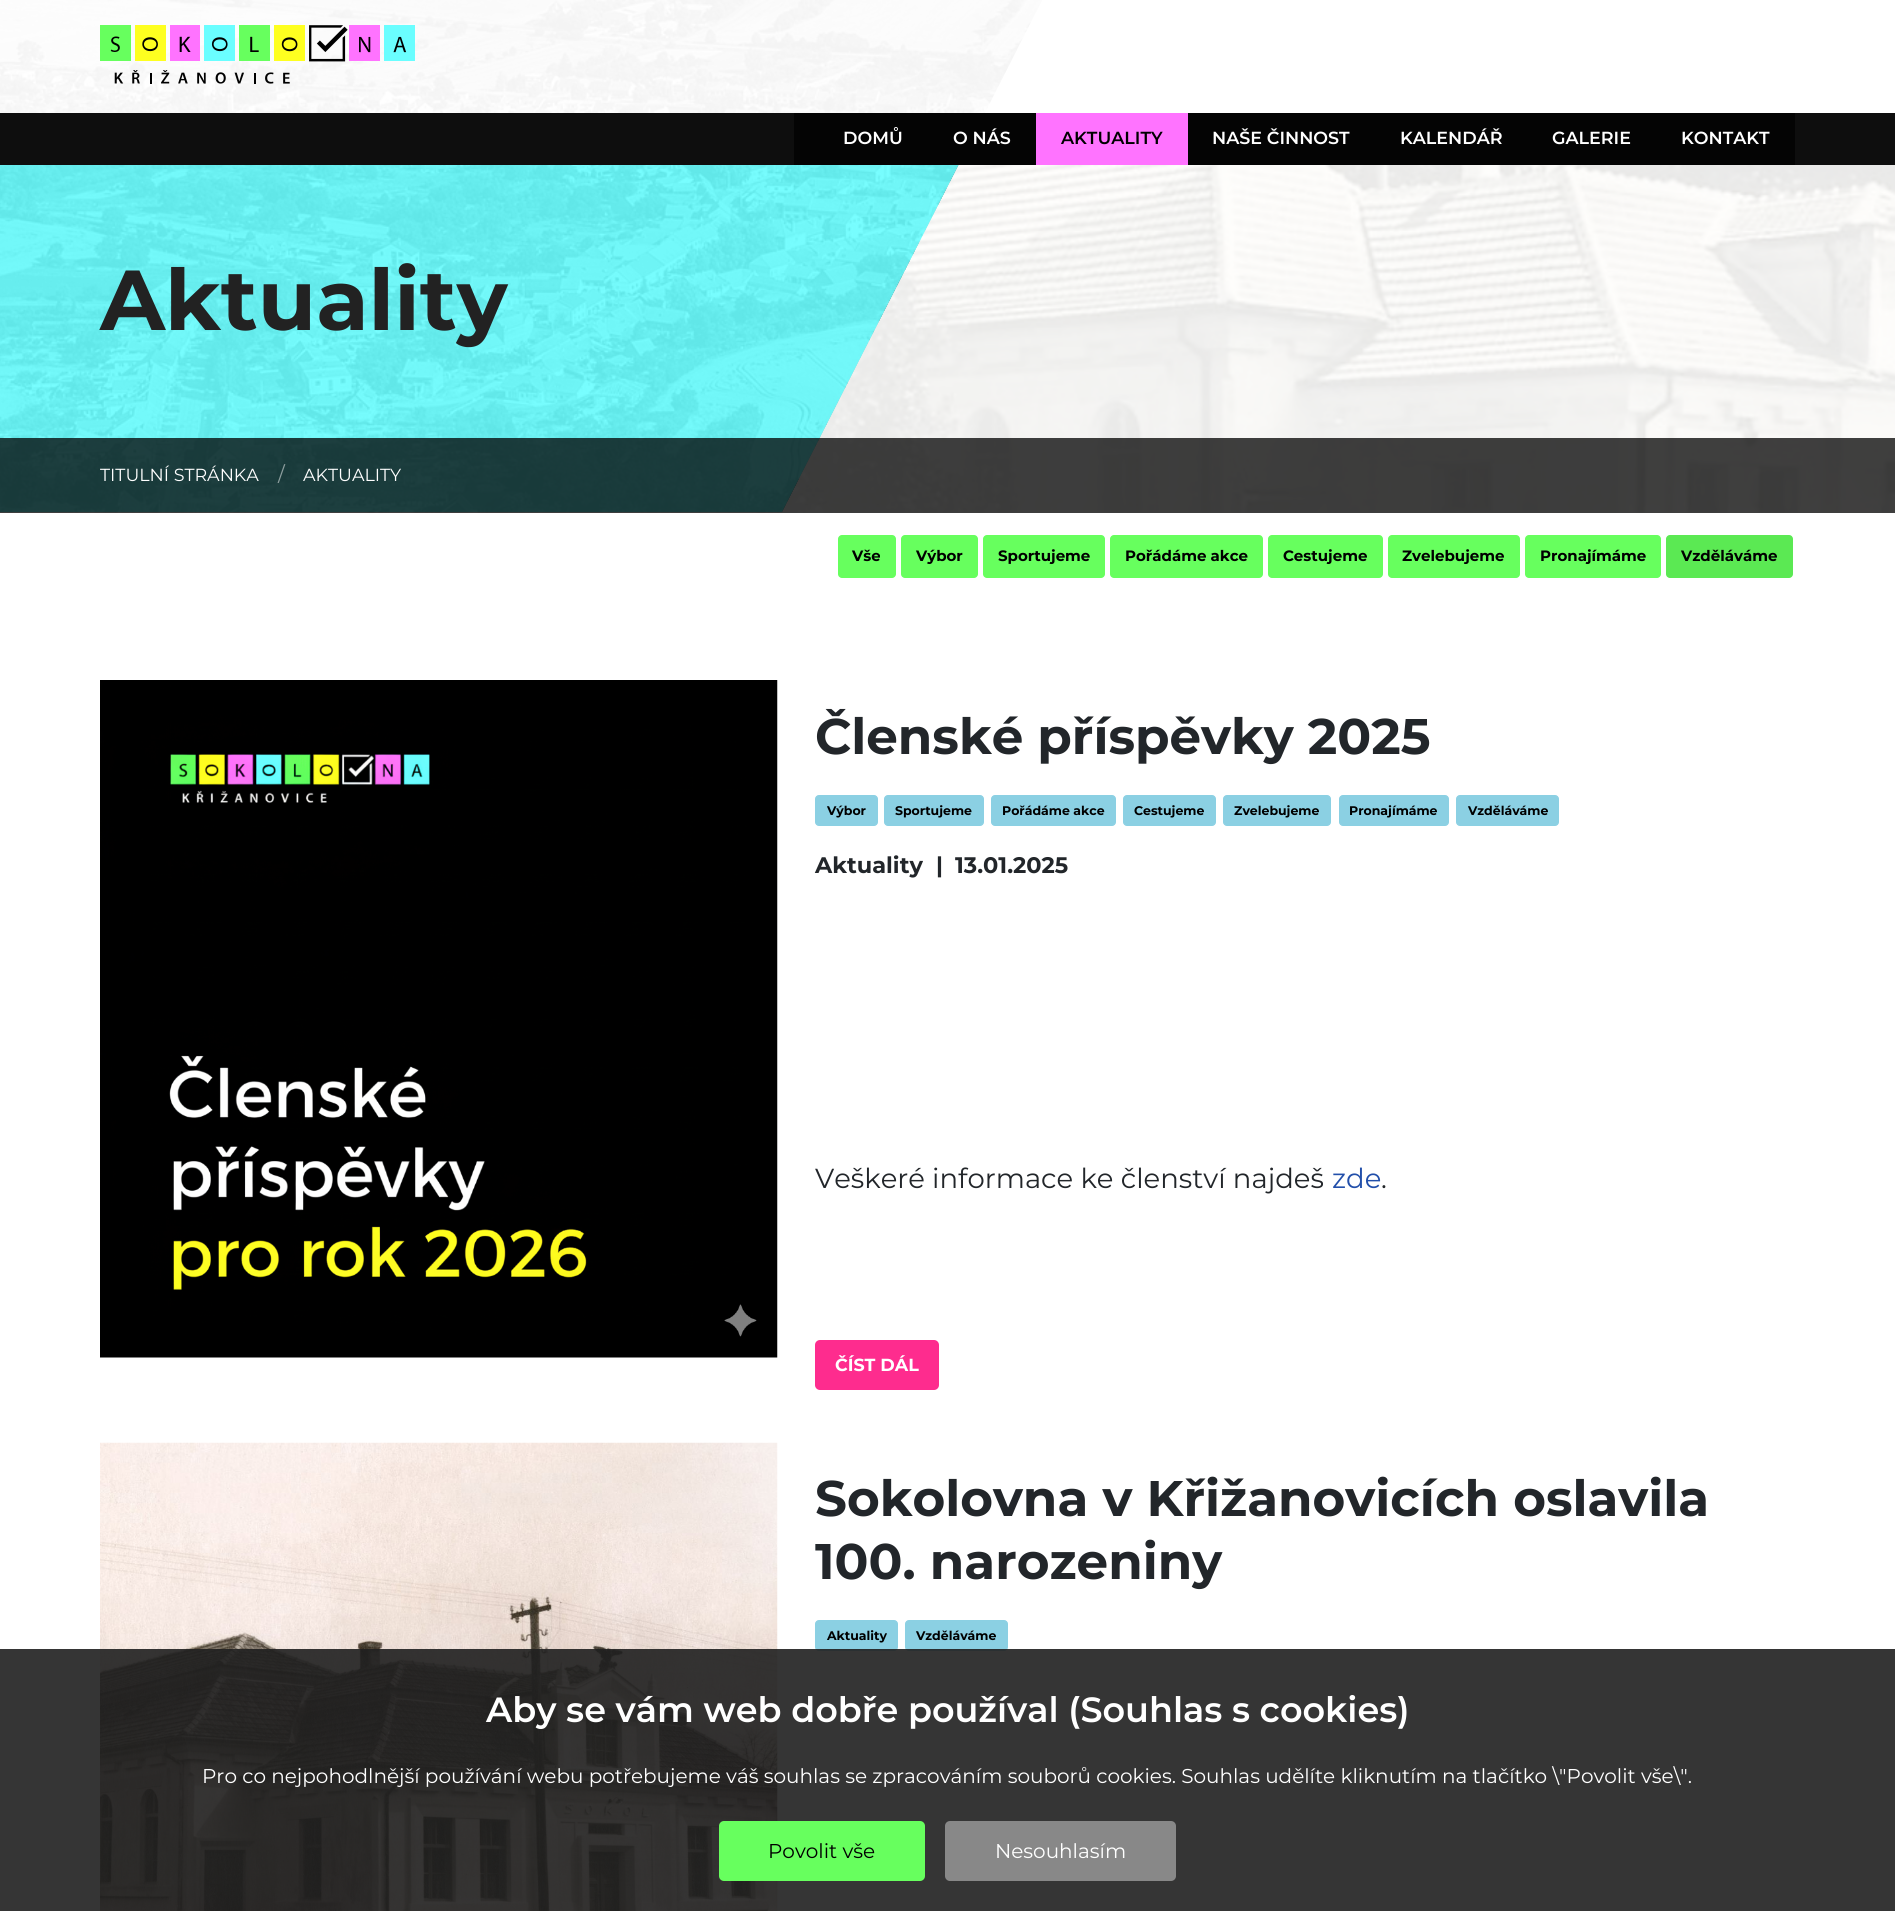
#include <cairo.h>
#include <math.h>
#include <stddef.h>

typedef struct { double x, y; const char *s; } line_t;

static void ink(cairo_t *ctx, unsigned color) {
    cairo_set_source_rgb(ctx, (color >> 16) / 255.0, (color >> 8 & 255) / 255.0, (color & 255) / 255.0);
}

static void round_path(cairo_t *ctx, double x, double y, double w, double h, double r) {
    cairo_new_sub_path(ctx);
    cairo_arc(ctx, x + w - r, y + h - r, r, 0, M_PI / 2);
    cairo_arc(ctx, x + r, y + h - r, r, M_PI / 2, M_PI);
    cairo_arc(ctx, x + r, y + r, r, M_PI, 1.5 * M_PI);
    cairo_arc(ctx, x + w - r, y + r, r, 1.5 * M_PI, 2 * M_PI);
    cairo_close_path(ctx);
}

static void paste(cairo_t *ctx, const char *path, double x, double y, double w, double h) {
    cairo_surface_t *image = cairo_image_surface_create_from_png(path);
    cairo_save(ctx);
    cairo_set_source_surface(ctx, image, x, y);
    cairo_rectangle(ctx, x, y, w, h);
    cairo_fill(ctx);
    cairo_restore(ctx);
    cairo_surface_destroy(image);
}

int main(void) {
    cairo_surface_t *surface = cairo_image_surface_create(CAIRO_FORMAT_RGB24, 1895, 1911);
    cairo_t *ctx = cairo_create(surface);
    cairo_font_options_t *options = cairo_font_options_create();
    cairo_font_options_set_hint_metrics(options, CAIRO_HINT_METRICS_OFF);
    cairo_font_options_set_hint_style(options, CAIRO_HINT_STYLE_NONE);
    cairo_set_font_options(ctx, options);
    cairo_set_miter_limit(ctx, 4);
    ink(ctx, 0xFFFFFF);
    cairo_paint(ctx);
    paste(ctx, "media/3.png", 757, 165, 1138, 348);
    paste(ctx, "media/2.png", 0, 0, 1042, 513);
    cairo_set_source_rgba(ctx, 1, 1, 1, 0.95);
    cairo_rectangle(ctx, 0, 0, 1042, 113);
    cairo_fill(ctx);
    paste(ctx, "media/1.png", 100, 25, 315, 59);
    cairo_set_source_rgba(ctx, 0.416, 0.996, 1, 0.9);
    cairo_new_path(ctx);
    cairo_move_to(ctx, 0, 113);
    cairo_line_to(ctx, 0, 512);
    cairo_line_to(ctx, 782, 512);
    cairo_line_to(ctx, 985, 113);
    cairo_close_path(ctx);
    cairo_fill(ctx);
    ink(ctx, 0x0E0E0E);
    cairo_rectangle(ctx, 0, 113, 1895, 52);
    cairo_fill(ctx);
    ink(ctx, 0x040404);
    cairo_rectangle(ctx, 794, 113, 1001, 52);
    cairo_fill(ctx);
    cairo_select_font_face(ctx, "Montserrat SemiBold", CAIRO_FONT_SLANT_NORMAL, CAIRO_FONT_WEIGHT_NORMAL);
    cairo_set_font_size(ctx, 17.5);
    ink(ctx, 0xFFFFFF);
    cairo_move_to(ctx, 843, 144);
    cairo_show_text(ctx, "DOMŮ");
    cairo_move_to(ctx, 953, 144);
    cairo_show_text(ctx, "O NÁS");
    ink(ctx, 0xFF73FF);
    cairo_rectangle(ctx, 1036, 113, 152, 52);
    cairo_fill(ctx);
    ink(ctx, 0x000000);
    cairo_move_to(ctx, 1061, 144);
    cairo_show_text(ctx, "AKTUALITY");
    ink(ctx, 0xFFFFFF);
    {
        static const line_t items[] = {
            {1212, 144, "NAŠE ČINNOST"},
            {1400, 144, "KALENDÁŘ"},
            {1552, 144, "GALERIE"},
            {1681, 144, "KONTAKT"},
        };
        for (size_t i = 0; i < sizeof items / sizeof *items; i++) {
            cairo_move_to(ctx, items[i].x, items[i].y);
            cairo_show_text(ctx, items[i].s);
        }
    }
    cairo_select_font_face(ctx, "Montserrat", CAIRO_FONT_SLANT_NORMAL, CAIRO_FONT_WEIGHT_BOLD);
    cairo_set_font_size(ctx, 85);
    ink(ctx, 0x222222);
    cairo_move_to(ctx, 100, 330);
    cairo_show_text(ctx, "Aktuality");
    cairo_set_source_rgba(ctx, 0, 0, 0, 0.75);
    cairo_rectangle(ctx, 0, 438, 1895, 75);
    cairo_fill(ctx);
    cairo_select_font_face(ctx, "Montserrat", CAIRO_FONT_SLANT_NORMAL, CAIRO_FONT_WEIGHT_NORMAL);
    cairo_set_font_size(ctx, 17.5);
    ink(ctx, 0xFFFFFF);
    cairo_move_to(ctx, 100, 481);
    cairo_show_text(ctx, "TITULNÍ STRÁNKA");
    cairo_set_font_size(ctx, 20);
    ink(ctx, 0x8C9D9D);
    cairo_move_to(ctx, 278, 481);
    cairo_show_text(ctx, "/");
    cairo_set_font_size(ctx, 17.5);
    ink(ctx, 0xFFFFFF);
    cairo_move_to(ctx, 303, 481);
    cairo_show_text(ctx, "AKTUALITY");
    ink(ctx, 0x67FF5E);
    round_path(ctx, 838, 535, 58, 43, 4);
    cairo_fill(ctx);
    cairo_select_font_face(ctx, "Montserrat", CAIRO_FONT_SLANT_NORMAL, CAIRO_FONT_WEIGHT_BOLD);
    cairo_set_font_size(ctx, 15);
    ink(ctx, 0x000000);
    cairo_move_to(ctx, 852, 561);
    cairo_show_text(ctx, "Vše");
    ink(ctx, 0x67FF5E);
    round_path(ctx, 901, 535, 77, 43, 4);
    cairo_fill(ctx);
    ink(ctx, 0x000000);
    cairo_move_to(ctx, 916, 561);
    cairo_show_text(ctx, "Výbor");
    ink(ctx, 0x67FF5E);
    round_path(ctx, 983, 535, 122, 43, 4);
    cairo_fill(ctx);
    ink(ctx, 0x000000);
    cairo_move_to(ctx, 998, 561);
    cairo_show_text(ctx, "Sportujeme");
    ink(ctx, 0x67FF5E);
    round_path(ctx, 1110, 535, 153, 43, 4);
    cairo_fill(ctx);
    ink(ctx, 0x000000);
    cairo_move_to(ctx, 1125, 561);
    cairo_show_text(ctx, "Pořádáme akce");
    ink(ctx, 0x67FF5E);
    round_path(ctx, 1268, 535, 115, 43, 4);
    cairo_fill(ctx);
    ink(ctx, 0x000000);
    cairo_move_to(ctx, 1283, 561);
    cairo_show_text(ctx, "Cestujeme");
    ink(ctx, 0x67FF5E);
    round_path(ctx, 1388, 535, 132, 43, 4);
    cairo_fill(ctx);
    ink(ctx, 0x000000);
    cairo_move_to(ctx, 1402, 561);
    cairo_show_text(ctx, "Zvelebujeme");
    ink(ctx, 0x67FF5E);
    round_path(ctx, 1525, 535, 136, 43, 4);
    cairo_fill(ctx);
    ink(ctx, 0x000000);
    cairo_move_to(ctx, 1540, 561);
    cairo_show_text(ctx, "Pronajímáme");
    ink(ctx, 0x5BE953);
    round_path(ctx, 1666, 535, 127, 43, 4);
    cairo_fill(ctx);
    ink(ctx, 0x000000);
    cairo_move_to(ctx, 1681, 561);
    cairo_show_text(ctx, "Vzděláváme");
    paste(ctx, "media/4.png", 100, 680, 678, 678);
    cairo_set_font_size(ctx, 50);
    ink(ctx, 0x22262A);
    cairo_move_to(ctx, 815, 754);
    cairo_show_text(ctx, "Členské příspěvky 2025");
    ink(ctx, 0x8BD0E3);
    round_path(ctx, 815.5, 795.5, 62, 30, 3.5);
    cairo_fill_preserve(ctx);
    cairo_set_line_width(ctx, 1);
    cairo_stroke(ctx);
    cairo_set_font_size(ctx, 12.5);
    ink(ctx, 0x000000);
    cairo_move_to(ctx, 827, 815);
    cairo_show_text(ctx, "Výbor");
    ink(ctx, 0x8BD0E3);
    round_path(ctx, 884.5, 795.5, 99, 30, 3.5);
    cairo_fill_preserve(ctx);
    cairo_stroke(ctx);
    ink(ctx, 0x000000);
    cairo_move_to(ctx, 895, 815);
    cairo_show_text(ctx, "Sportujeme");
    ink(ctx, 0x8BD0E3);
    round_path(ctx, 991.5, 795.5, 124, 30, 3.5);
    cairo_fill_preserve(ctx);
    cairo_stroke(ctx);
    ink(ctx, 0x000000);
    cairo_move_to(ctx, 1002, 815);
    cairo_show_text(ctx, "Pořádáme akce");
    ink(ctx, 0x8BD0E3);
    round_path(ctx, 1123.5, 795.5, 92, 30, 3.5);
    cairo_fill_preserve(ctx);
    cairo_stroke(ctx);
    ink(ctx, 0x000000);
    cairo_move_to(ctx, 1134, 815);
    cairo_show_text(ctx, "Cestujeme");
    ink(ctx, 0x8BD0E3);
    round_path(ctx, 1223.5, 795.5, 107, 30, 3.5);
    cairo_fill_preserve(ctx);
    cairo_stroke(ctx);
    ink(ctx, 0x000000);
    cairo_move_to(ctx, 1234, 815);
    cairo_show_text(ctx, "Zvelebujeme");
    ink(ctx, 0x8BD0E3);
    round_path(ctx, 1339.5, 795.5, 109, 30, 3.5);
    cairo_fill_preserve(ctx);
    cairo_stroke(ctx);
    ink(ctx, 0x000000);
    cairo_move_to(ctx, 1349, 815);
    cairo_show_text(ctx, "Pronajímáme");
    ink(ctx, 0x8BD0E3);
    round_path(ctx, 1456.5, 795.5, 102, 30, 3.5);
    cairo_fill_preserve(ctx);
    cairo_stroke(ctx);
    ink(ctx, 0x000000);
    cairo_move_to(ctx, 1468, 815);
    cairo_show_text(ctx, "Vzděláváme");
    cairo_set_font_size(ctx, 22.5);
    ink(ctx, 0x22262A);
    {
        static const line_t items[] = {
            {815, 873, "Aktuality"},
            {936, 873, "|"},
            {955, 873, "13.01.2025"},
        };
        for (size_t i = 0; i < sizeof items / sizeof *items; i++) {
            cairo_move_to(ctx, items[i].x, items[i].y);
            cairo_show_text(ctx, items[i].s);
        }
    }
    cairo_select_font_face(ctx, "Montserrat", CAIRO_FONT_SLANT_NORMAL, CAIRO_FONT_WEIGHT_NORMAL);
    cairo_set_font_size(ctx, 27.5);
    cairo_move_to(ctx, 815, 1188);
    cairo_show_text(ctx, "Veškeré informace ke členství najdeš");
    ink(ctx, 0x224FAA);
    cairo_move_to(ctx, 1332, 1188);
    cairo_show_text(ctx, "zde");
    ink(ctx, 0x22262A);
    cairo_move_to(ctx, 1381, 1188);
    cairo_show_text(ctx, ".");
    ink(ctx, 0xFE2C8E);
    round_path(ctx, 815, 1340, 124, 50, 5);
    cairo_fill(ctx);
    cairo_select_font_face(ctx, "Montserrat", CAIRO_FONT_SLANT_NORMAL, CAIRO_FONT_WEIGHT_BOLD);
    cairo_set_font_size(ctx, 17.5);
    ink(ctx, 0xFFFFFF);
    cairo_move_to(ctx, 835, 1371);
    cairo_show_text(ctx, "ČÍST DÁL");
    paste(ctx, "media/5.png", 100, 1442, 678, 469);
    cairo_set_font_size(ctx, 50);
    ink(ctx, 0x22262A);
    cairo_move_to(ctx, 815, 1516);
    cairo_show_text(ctx, "Sokolovna v Křižanovicích oslavila");
    cairo_move_to(ctx, 815, 1579);
    cairo_show_text(ctx, "100. narozeniny");
    ink(ctx, 0x8BD0E3);
    round_path(ctx, 815.5, 1620.5, 82, 30, 3.5);
    cairo_fill_preserve(ctx);
    cairo_stroke(ctx);
    cairo_set_font_size(ctx, 12.5);
    ink(ctx, 0x000000);
    cairo_move_to(ctx, 827, 1640);
    cairo_show_text(ctx, "Aktuality");
    ink(ctx, 0x8BD0E3);
    round_path(ctx, 905.5, 1620.5, 102, 30, 3.5);
    cairo_fill_preserve(ctx);
    cairo_stroke(ctx);
    ink(ctx, 0x000000);
    cairo_move_to(ctx, 916, 1640);
    cairo_show_text(ctx, "Vzděláváme");
    cairo_set_source_rgba(ctx, 0.125, 0.125, 0.125, 0.9);
    cairo_rectangle(ctx, 0, 1649, 1895, 262);
    cairo_fill(ctx);
    cairo_select_font_face(ctx, "Montserrat SemiBold", CAIRO_FONT_SLANT_NORMAL, CAIRO_FONT_WEIGHT_NORMAL);
    cairo_set_font_size(ctx, 35);
    ink(ctx, 0xFFFFFF);
    cairo_move_to(ctx, 486, 1722);
    cairo_show_text(ctx, "Aby se vám web dobře používal (Souhlas s cookies)");
    cairo_select_font_face(ctx, "Montserrat", CAIRO_FONT_SLANT_NORMAL, CAIRO_FONT_WEIGHT_NORMAL);
    cairo_set_font_size(ctx, 20);
    cairo_move_to(ctx, 202, 1783);
    cairo_show_text(ctx, "Pro co nejpohodlnější používání webu potřebujeme váš souhlas se zpracováním souborů cookies. Souhlas udělíte kliknutím na tlačítko \\\"Povolit vše\\\".");
    ink(ctx, 0x67FF5E);
    round_path(ctx, 719, 1821, 206, 60, 5);
    cairo_fill(ctx);
    ink(ctx, 0x000000);
    cairo_move_to(ctx, 768, 1858);
    cairo_show_text(ctx, "Povolit vše");
    ink(ctx, 0x888888);
    round_path(ctx, 945, 1821, 231, 60, 5);
    cairo_fill(ctx);
    ink(ctx, 0xFFFFFF);
    cairo_move_to(ctx, 995, 1858);
    cairo_show_text(ctx, "Nesouhlasím");
    cairo_surface_write_to_png(surface, "image.png");
    cairo_font_options_destroy(options);
    cairo_destroy(ctx);
    cairo_surface_destroy(surface);
    return 0;
}
